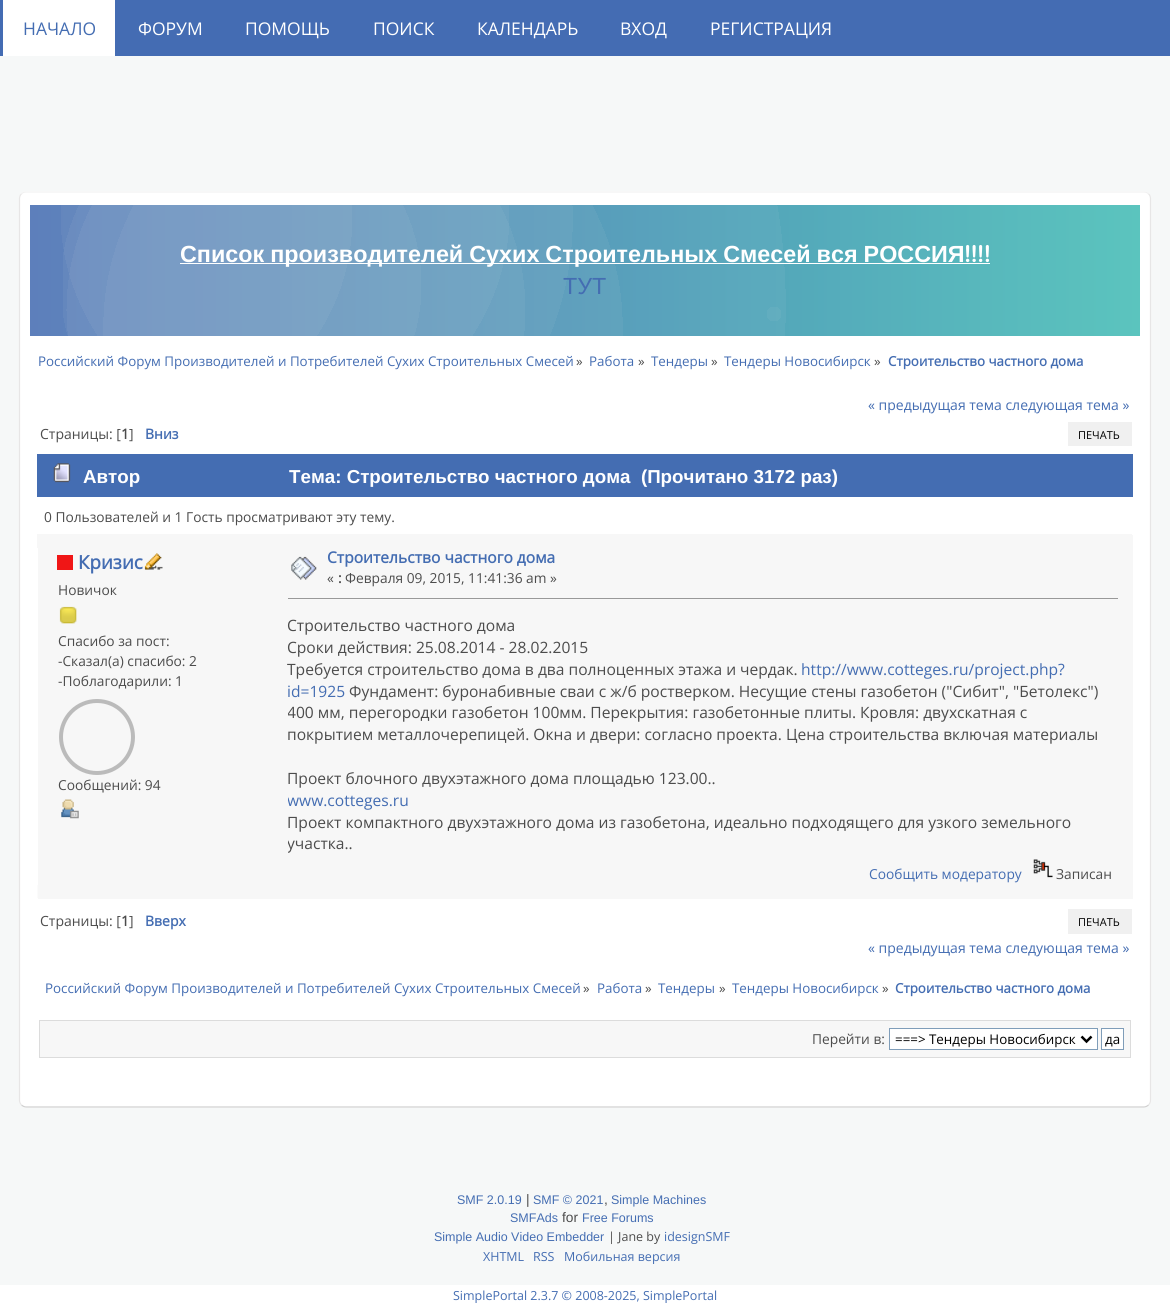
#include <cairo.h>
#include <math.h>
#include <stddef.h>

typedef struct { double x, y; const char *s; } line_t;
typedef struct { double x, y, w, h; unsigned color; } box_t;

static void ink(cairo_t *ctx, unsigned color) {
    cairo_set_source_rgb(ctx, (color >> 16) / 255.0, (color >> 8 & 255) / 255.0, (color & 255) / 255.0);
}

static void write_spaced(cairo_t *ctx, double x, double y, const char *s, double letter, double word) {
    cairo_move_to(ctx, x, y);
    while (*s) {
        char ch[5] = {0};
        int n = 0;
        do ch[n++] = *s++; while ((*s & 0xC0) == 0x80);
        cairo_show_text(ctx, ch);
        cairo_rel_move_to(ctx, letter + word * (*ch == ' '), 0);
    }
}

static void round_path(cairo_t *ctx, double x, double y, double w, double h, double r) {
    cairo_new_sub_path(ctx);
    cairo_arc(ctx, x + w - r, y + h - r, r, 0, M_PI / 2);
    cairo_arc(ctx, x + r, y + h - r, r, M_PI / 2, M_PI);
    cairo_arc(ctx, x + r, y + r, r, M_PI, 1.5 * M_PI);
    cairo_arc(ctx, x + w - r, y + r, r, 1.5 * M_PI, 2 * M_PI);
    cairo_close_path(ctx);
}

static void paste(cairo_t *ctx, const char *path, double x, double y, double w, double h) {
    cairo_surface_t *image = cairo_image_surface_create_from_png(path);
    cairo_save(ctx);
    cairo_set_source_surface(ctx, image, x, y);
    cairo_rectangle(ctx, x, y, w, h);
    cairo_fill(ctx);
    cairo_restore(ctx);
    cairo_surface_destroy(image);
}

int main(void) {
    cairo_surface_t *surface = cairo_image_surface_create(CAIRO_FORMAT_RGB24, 1170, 1303);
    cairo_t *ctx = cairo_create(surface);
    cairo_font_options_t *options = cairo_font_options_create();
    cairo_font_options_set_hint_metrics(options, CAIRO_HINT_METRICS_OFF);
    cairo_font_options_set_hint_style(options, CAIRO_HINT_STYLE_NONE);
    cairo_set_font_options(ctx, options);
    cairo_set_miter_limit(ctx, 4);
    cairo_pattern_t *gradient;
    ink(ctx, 0xF6F8F8);
    cairo_paint(ctx);
    {
        static const box_t items[] = {
            {0, 1285, 1170, 18, 0xFFFFFF},
            {0, 0, 1170, 56, 0x446CB3},
            {3, 0, 112, 56, 0xFFFFFF},
        };
        for (size_t i = 0; i < sizeof items / sizeof *items; i++) {
            ink(ctx, items[i].color);
            cairo_rectangle(ctx, items[i].x, items[i].y, items[i].w, items[i].h);
            cairo_fill(ctx);
        }
    }
    cairo_select_font_face(ctx, "Open Sans", CAIRO_FONT_SLANT_NORMAL, CAIRO_FONT_WEIGHT_NORMAL);
    cairo_set_font_size(ctx, 17.5);
    ink(ctx, 0x446DB2);
    cairo_move_to(ctx, 23, 35);
    cairo_show_text(ctx, "НАЧАЛО");
    ink(ctx, 0xFFFFFF);
    {
        static const line_t items[] = {
            {138, 35, "ФОРУМ"},
            {245, 35, "ПОМОЩЬ"},
            {373, 35, "ПОИСК"},
            {477, 35, "КАЛЕНДАРЬ"},
            {620, 35, "ВХОД"},
            {710, 35, "РЕГИСТРАЦИЯ"},
        };
        for (size_t i = 0; i < sizeof items / sizeof *items; i++) {
            cairo_move_to(ctx, items[i].x, items[i].y);
            cairo_show_text(ctx, items[i].s);
        }
    }
    round_path(ctx, 19, 191, 1132, 917, 8);
    cairo_fill(ctx);
    cairo_new_path(ctx);
    cairo_move_to(ctx, 21.5, 194);
    cairo_curve_to(ctx, 22.5, 192.5, 24.5, 192, 26, 192);
    cairo_line_to(ctx, 1144, 192);
    cairo_curve_to(ctx, 1145.5, 192, 1147.5, 192.5, 1148.5, 194);
    ink(ctx, 0xF1F1F1);
    cairo_set_line_width(ctx, 1.2);
    cairo_stroke(ctx);
    cairo_new_path(ctx);
    cairo_move_to(ctx, 1148.5, 194);
    cairo_curve_to(ctx, 1150, 195, 1150.5, 197, 1150.5, 199);
    cairo_line_to(ctx, 1150.5, 1100);
    cairo_curve_to(ctx, 1150.5, 1102, 1150, 1103.5, 1148.5, 1105);
    ink(ctx, 0xE7E6E6);
    cairo_stroke(ctx);
    cairo_new_path(ctx);
    cairo_move_to(ctx, 1148.5, 1105);
    cairo_curve_to(ctx, 1147.5, 1106, 1145.5, 1107, 1144, 1107);
    cairo_line_to(ctx, 26, 1107);
    cairo_curve_to(ctx, 24.5, 1107, 22.5, 1106, 21.5, 1105);
    ink(ctx, 0xCFCFCF);
    cairo_stroke(ctx);
    cairo_new_path(ctx);
    cairo_move_to(ctx, 21.5, 1105);
    cairo_curve_to(ctx, 20, 1103.5, 19.5, 1102, 19.5, 1100);
    cairo_line_to(ctx, 19.5, 199);
    cairo_curve_to(ctx, 19.5, 197, 20, 195, 21.5, 194);
    ink(ctx, 0xE7E6E6);
    cairo_stroke(ctx);
    gradient = cairo_pattern_create_linear(30, 271, 1140, 271);
    cairo_pattern_add_color_stop_rgba(gradient, 0, 0.267, 0.427, 0.698, 1);
    cairo_pattern_add_color_stop_rgba(gradient, 1, 0.357, 0.769, 0.745, 1);
    cairo_set_source(ctx, gradient);
    cairo_pattern_destroy(gradient);
    cairo_rectangle(ctx, 30, 205, 1110, 131);
    cairo_fill(ctx);
    gradient = cairo_pattern_create_radial(363, 327, 0, 363, 327, 787);
    cairo_pattern_add_color_stop_rgba(gradient, 0, 0.961, 0.961, 0.961, 0.05);
    cairo_pattern_add_color_stop_rgba(gradient, 0.33, 0.961, 0.961, 0.961, 0.05);
    cairo_pattern_add_color_stop_rgba(gradient, 0.33, 0.961, 0.961, 0.961, 0);
    cairo_pattern_add_color_stop_rgba(gradient, 0.82, 0, 0, 0, 0);
    cairo_pattern_add_color_stop_rgba(gradient, 1, 0, 0, 0, 0);
    cairo_set_source(ctx, gradient);
    cairo_pattern_destroy(gradient);
    cairo_rectangle(ctx, 102, 205, 521, 131);
    cairo_fill(ctx);
    gradient = cairo_pattern_create_radial(174, 306, 0, 174, 306, 971);
    cairo_pattern_add_color_stop_rgba(gradient, 0, 0.961, 0.961, 0.961, 0.05);
    cairo_pattern_add_color_stop_rgba(gradient, 0.63, 0.961, 0.961, 0.961, 0.05);
    cairo_pattern_add_color_stop_rgba(gradient, 0.63, 0.961, 0.961, 0.961, 0);
    cairo_pattern_add_color_stop_rgba(gradient, 0.72, 0, 0, 0, 0);
    cairo_pattern_add_color_stop_rgba(gradient, 1, 0, 0, 0, 0);
    cairo_set_source(ctx, gradient);
    cairo_pattern_destroy(gradient);
    cairo_rectangle(ctx, 30, 205, 757, 131);
    cairo_fill(ctx);
    gradient = cairo_pattern_create_radial(241, 285, 0, 241, 285, 903);
    cairo_pattern_add_color_stop_rgba(gradient, 0, 0.961, 0.961, 0.961, 0.05);
    cairo_pattern_add_color_stop_rgba(gradient, 0.2, 0.961, 0.961, 0.961, 0.05);
    cairo_pattern_add_color_stop_rgba(gradient, 0.2, 0.961, 0.961, 0.961, 0);
    cairo_pattern_add_color_stop_rgba(gradient, 0.61, 0, 0, 0, 0);
    cairo_pattern_add_color_stop_rgba(gradient, 1, 0, 0, 0, 0);
    cairo_set_source(ctx, gradient);
    cairo_pattern_destroy(gradient);
    cairo_rectangle(ctx, 63, 205, 358, 131);
    cairo_fill(ctx);
    gradient = cairo_pattern_create_radial(141, 219, 0, 141, 219, 1006);
    cairo_pattern_add_color_stop_rgba(gradient, 0, 0.961, 0.961, 0.961, 0.05);
    cairo_pattern_add_color_stop_rgba(gradient, 0.21, 0.961, 0.961, 0.961, 0.05);
    cairo_pattern_add_color_stop_rgba(gradient, 0.21, 0.961, 0.961, 0.961, 0);
    cairo_pattern_add_color_stop_rgba(gradient, 0.81, 0, 0, 0, 0);
    cairo_pattern_add_color_stop_rgba(gradient, 1, 0, 0, 0, 0);
    cairo_set_source(ctx, gradient);
    cairo_pattern_destroy(gradient);
    cairo_rectangle(ctx, 30, 205, 322, 131);
    cairo_fill(ctx);
    gradient = cairo_pattern_create_radial(263, 219, 0, 263, 219, 885);
    cairo_pattern_add_color_stop_rgba(gradient, 0, 0.961, 0.961, 0.961, 0.05);
    cairo_pattern_add_color_stop_rgba(gradient, 0.35, 0.961, 0.961, 0.961, 0.05);
    cairo_pattern_add_color_stop_rgba(gradient, 0.35, 0.961, 0.961, 0.961, 0);
    cairo_pattern_add_color_stop_rgba(gradient, 0.45, 0, 0, 0, 0);
    cairo_pattern_add_color_stop_rgba(gradient, 1, 0, 0, 0, 0);
    cairo_set_source(ctx, gradient);
    cairo_pattern_destroy(gradient);
    cairo_rectangle(ctx, 30, 205, 543, 131);
    cairo_fill(ctx);
    gradient = cairo_pattern_create_radial(285, 212, 0, 285, 212, 864);
    cairo_pattern_add_color_stop_rgba(gradient, 0, 0.961, 0.961, 0.961, 0.05);
    cairo_pattern_add_color_stop_rgba(gradient, 0.26, 0.961, 0.961, 0.961, 0.05);
    cairo_pattern_add_color_stop_rgba(gradient, 0.26, 0.961, 0.961, 0.961, 0);
    cairo_pattern_add_color_stop_rgba(gradient, 0.82, 0, 0, 0, 0);
    cairo_pattern_add_color_stop_rgba(gradient, 1, 0, 0, 0, 0);
    cairo_set_source(ctx, gradient);
    cairo_pattern_destroy(gradient);
    cairo_rectangle(ctx, 61, 205, 448, 131);
    cairo_fill(ctx);
    gradient = cairo_pattern_create_radial(296, 310, 0, 296, 310, 850);
    cairo_pattern_add_color_stop_rgba(gradient, 0, 0.961, 0.961, 0.961, 0.05);
    cairo_pattern_add_color_stop_rgba(gradient, 0.27, 0.961, 0.961, 0.961, 0.05);
    cairo_pattern_add_color_stop_rgba(gradient, 0.27, 0.961, 0.961, 0.961, 0);
    cairo_pattern_add_color_stop_rgba(gradient, 0.63, 0, 0, 0, 0);
    cairo_pattern_add_color_stop_rgba(gradient, 1, 0, 0, 0, 0);
    cairo_set_source(ctx, gradient);
    cairo_pattern_destroy(gradient);
    cairo_rectangle(ctx, 66, 205, 459, 131);
    cairo_fill(ctx);
    gradient = cairo_pattern_create_radial(774, 314, 0, 774, 314, 752);
    cairo_pattern_add_color_stop_rgba(gradient, 0, 0.961, 0.961, 0.961, 0.05);
    cairo_pattern_add_color_stop_rgba(gradient, 0.01, 0.961, 0.961, 0.961, 0.05);
    cairo_pattern_add_color_stop_rgba(gradient, 0.01, 0.961, 0.961, 0.961, 0);
    cairo_pattern_add_color_stop_rgba(gradient, 0.05, 0, 0, 0, 0);
    cairo_pattern_add_color_stop_rgba(gradient, 1, 0, 0, 0, 0);
    cairo_set_source(ctx, gradient);
    cairo_pattern_destroy(gradient);
    cairo_rectangle(ctx, 767, 307, 15, 15);
    cairo_fill(ctx);
    ink(ctx, 0xFFFFFF);
    cairo_rectangle(ctx, 180, 263, 810, 1);
    cairo_fill(ctx);
    cairo_select_font_face(ctx, "Liberation Sans", CAIRO_FONT_SLANT_NORMAL, CAIRO_FONT_WEIGHT_BOLD);
    cairo_set_font_size(ctx, 23.35);
    write_spaced(ctx, 180, 262, "Список производителей Сухих Строительных Смесей вся РОССИЯ", 0, -0.5);
    cairo_select_font_face(ctx, "Varela Round", CAIRO_FONT_SLANT_NORMAL, CAIRO_FONT_WEIGHT_BOLD);
    cairo_move_to(ctx, 964, 262);
    cairo_show_text(ctx, "!!!!");
    cairo_select_font_face(ctx, "Liberation Sans", CAIRO_FONT_SLANT_NORMAL, CAIRO_FONT_WEIGHT_NORMAL);
    ink(ctx, 0x446DB2);
    cairo_move_to(ctx, 563, 294);
    cairo_show_text(ctx, "ТУТ");
    cairo_select_font_face(ctx, "Open Sans", CAIRO_FONT_SLANT_NORMAL, CAIRO_FONT_WEIGHT_NORMAL);
    cairo_set_font_size(ctx, 13.35);
    cairo_move_to(ctx, 38, 366);
    cairo_show_text(ctx, "Российский Форум Производителей и Потребителей Сухих Строительных Смесей");
    ink(ctx, 0x4C4C4C);
    cairo_move_to(ctx, 576, 366);
    cairo_show_text(ctx, "»");
    ink(ctx, 0x446DB2);
    cairo_move_to(ctx, 589, 366);
    cairo_show_text(ctx, "Работа");
    ink(ctx, 0x4C4C4C);
    cairo_move_to(ctx, 638, 366);
    cairo_show_text(ctx, "»");
    ink(ctx, 0x446DB2);
    cairo_move_to(ctx, 651, 366);
    cairo_show_text(ctx, "Тендеры");
    ink(ctx, 0x4C4C4C);
    cairo_move_to(ctx, 711, 366);
    cairo_show_text(ctx, "»");
    ink(ctx, 0x446DB2);
    cairo_move_to(ctx, 724, 366);
    cairo_show_text(ctx, "Тендеры Новосибирск");
    ink(ctx, 0x4C4C4C);
    cairo_move_to(ctx, 874, 366);
    cairo_show_text(ctx, "»");
    cairo_select_font_face(ctx, "Open Sans", CAIRO_FONT_SLANT_NORMAL, CAIRO_FONT_WEIGHT_BOLD);
    ink(ctx, 0x446DB2);
    cairo_move_to(ctx, 888, 366);
    cairo_show_text(ctx, "Строительство частного дома");
    cairo_select_font_face(ctx, "Open Sans", CAIRO_FONT_SLANT_NORMAL, CAIRO_FONT_WEIGHT_NORMAL);
    cairo_set_font_size(ctx, 14);
    cairo_move_to(ctx, 868, 410);
    cairo_show_text(ctx, "« предыдущая тема следующая тема »");
    ink(ctx, 0x4C4C4C);
    cairo_move_to(ctx, 40, 439);
    cairo_show_text(ctx, "Страницы: [");
    cairo_select_font_face(ctx, "Open Sans", CAIRO_FONT_SLANT_NORMAL, CAIRO_FONT_WEIGHT_BOLD);
    cairo_move_to(ctx, 121, 439);
    cairo_show_text(ctx, "1");
    cairo_select_font_face(ctx, "Open Sans", CAIRO_FONT_SLANT_NORMAL, CAIRO_FONT_WEIGHT_NORMAL);
    cairo_move_to(ctx, 129, 439);
    cairo_show_text(ctx, "]");
    cairo_select_font_face(ctx, "Open Sans", CAIRO_FONT_SLANT_NORMAL, CAIRO_FONT_WEIGHT_BOLD);
    ink(ctx, 0x446DB2);
    cairo_move_to(ctx, 145, 439);
    cairo_show_text(ctx, "Вниз");
    ink(ctx, 0xF0F0F0);
    cairo_rectangle(ctx, 1068, 422, 64, 24);
    cairo_fill(ctx);
    cairo_select_font_face(ctx, "Open Sans", CAIRO_FONT_SLANT_NORMAL, CAIRO_FONT_WEIGHT_NORMAL);
    cairo_set_font_size(ctx, 11);
    ink(ctx, 0x000000);
    cairo_move_to(ctx, 1078, 439);
    cairo_show_text(ctx, "ПЕЧАТЬ");
    ink(ctx, 0x446DB2);
    cairo_rectangle(ctx, 37, 454, 1096, 43);
    cairo_fill(ctx);
    paste(ctx, "media/1.png", 53, 463, 18, 20);
    cairo_select_font_face(ctx, "Liberation Sans", CAIRO_FONT_SLANT_NORMAL, CAIRO_FONT_WEIGHT_BOLD);
    cairo_set_font_size(ctx, 18.75);
    ink(ctx, 0xFFFFFF);
    cairo_move_to(ctx, 83, 483);
    cairo_show_text(ctx, "Автор");
    cairo_move_to(ctx, 289, 483);
    cairo_show_text(ctx, "Тема: Строительство частного дома  (Прочитано 3172 раз)");
    cairo_select_font_face(ctx, "Open Sans", CAIRO_FONT_SLANT_NORMAL, CAIRO_FONT_WEIGHT_NORMAL);
    cairo_set_font_size(ctx, 13.75);
    ink(ctx, 0x4C4C4C);
    cairo_move_to(ctx, 44, 522);
    cairo_show_text(ctx, "0 Пользователей и 1 Гость просматривают эту тему.");
    {
        static const box_t items[] = {
            {38, 535, 1095, 364, 0xF7F7F7},
            {37, 534, 1095, 14, 0xF7F7F7},
            {57, 555, 16, 15, 0xF01616},
        };
        for (size_t i = 0; i < sizeof items / sizeof *items; i++) {
            ink(ctx, items[i].color);
            cairo_rectangle(ctx, items[i].x, items[i].y, items[i].w, items[i].h);
            cairo_fill(ctx);
        }
    }
    cairo_select_font_face(ctx, "Open Sans", CAIRO_FONT_SLANT_NORMAL, CAIRO_FONT_WEIGHT_BOLD);
    cairo_set_font_size(ctx, 18.75);
    ink(ctx, 0x446DB2);
    cairo_move_to(ctx, 78, 569);
    cairo_show_text(ctx, "Кризис");
    paste(ctx, "media/2.png", 144, 553, 19, 17);
    cairo_select_font_face(ctx, "Open Sans", CAIRO_FONT_SLANT_NORMAL, CAIRO_FONT_WEIGHT_NORMAL);
    cairo_set_font_size(ctx, 13.75);
    ink(ctx, 0x4C4C4C);
    cairo_move_to(ctx, 58, 595);
    cairo_show_text(ctx, "Новичок");
    paste(ctx, "media/3.png", 59, 606, 18, 18);
    {
        static const line_t items[] = {
            {58, 646, "Спасибо за пост:"},
            {58, 666, "-Сказал(а) спасибо: 2"},
            {58, 686, "-Поблагодарили: 1"},
        };
        for (size_t i = 0; i < sizeof items / sizeof *items; i++) {
            cairo_move_to(ctx, items[i].x, items[i].y);
            cairo_show_text(ctx, items[i].s);
        }
    }
    cairo_new_path(ctx);
    cairo_arc(ctx, 97, 737, 36, 0, 2 * M_PI);
    ink(ctx, 0xBBBBBB);
    cairo_set_line_width(ctx, 4);
    cairo_stroke(ctx);
    ink(ctx, 0x4C4C4C);
    cairo_move_to(ctx, 58, 790);
    cairo_show_text(ctx, "Сообщений: 94");
    paste(ctx, "media/4.png", 61, 799, 18, 20);
    paste(ctx, "media/5.png", 291, 556, 26, 24);
    cairo_select_font_face(ctx, "Open Sans", CAIRO_FONT_SLANT_NORMAL, CAIRO_FONT_WEIGHT_BOLD);
    cairo_set_font_size(ctx, 15.6);
    ink(ctx, 0x446DB2);
    cairo_move_to(ctx, 327, 563);
    cairo_show_text(ctx, "Строительство частного дома");
    cairo_select_font_face(ctx, "Open Sans", CAIRO_FONT_SLANT_NORMAL, CAIRO_FONT_WEIGHT_NORMAL);
    cairo_set_font_size(ctx, 13.75);
    ink(ctx, 0x4C4C4C);
    cairo_move_to(ctx, 327, 583);
    cairo_show_text(ctx, "«");
    cairo_select_font_face(ctx, "Open Sans", CAIRO_FONT_SLANT_NORMAL, CAIRO_FONT_WEIGHT_BOLD);
    cairo_move_to(ctx, 338, 583);
    cairo_show_text(ctx, ":");
    cairo_select_font_face(ctx, "Open Sans", CAIRO_FONT_SLANT_NORMAL, CAIRO_FONT_WEIGHT_NORMAL);
    cairo_move_to(ctx, 345, 583);
    cairo_show_text(ctx, "Февраля 09, 2015, 11:41:36 am »");
    ink(ctx, 0x999999);
    cairo_rectangle(ctx, 288, 598, 830, 1);
    cairo_fill(ctx);
    cairo_set_font_size(ctx, 15.6);
    ink(ctx, 0x4C4C4C);
    {
        static const line_t items[] = {
            {287, 631, "Строительство частного дома"},
            {287, 653, "Сроки действия: 25.08.2014 - 28.02.2015"},
            {287, 675, "Требуется строительство дома в два полноценных этажа и чердак."},
        };
        for (size_t i = 0; i < sizeof items / sizeof *items; i++) {
            cairo_move_to(ctx, items[i].x, items[i].y);
            cairo_show_text(ctx, items[i].s);
        }
    }
    ink(ctx, 0x446DB2);
    cairo_move_to(ctx, 801, 675);
    cairo_show_text(ctx, "http://www.cotteges.ru/project.php?");
    cairo_move_to(ctx, 287, 697);
    cairo_show_text(ctx, "id=1925");
    ink(ctx, 0x4C4C4C);
    cairo_move_to(ctx, 349, 697);
    cairo_show_text(ctx, "Фундамент: буронабивные сваи с ж/б ростверком. Несущие стены газобетон (\"Сибит\", \"Бетолекс\")");
    cairo_save(ctx);
    cairo_rectangle(ctx, 288, 596, 845, 263);
    cairo_clip(ctx);
    cairo_move_to(ctx, 287, 718);
    cairo_show_text(ctx, "400 мм, перегородки газобетон 100мм. Перекрытия: газобетонные плиты. Кровля: двухскатная с");
    cairo_restore(ctx);
    cairo_move_to(ctx, 287, 740);
    cairo_show_text(ctx, "покрытием металлочерепицей. Окна и двери: согласно проекта. Цена строительства включая материалы");
    cairo_move_to(ctx, 287, 784);
    cairo_show_text(ctx, "Проект блочного двухэтажного дома площадью 123.00..");
    cairo_save(ctx);
    cairo_rectangle(ctx, 288, 596, 845, 263);
    cairo_clip(ctx);
    ink(ctx, 0x446DB2);
    cairo_move_to(ctx, 287, 806);
    cairo_show_text(ctx, "www.cotteges.ru");
    cairo_restore(ctx);
    cairo_move_to(ctx, 287, 828);
    cairo_show_text(ctx, "Проект компактного двухэтажного дома из газобетона, идеально подходящего для узкого земельного");
    cairo_save(ctx);
    cairo_rectangle(ctx, 288, 596, 845, 263);
    cairo_clip(ctx);
    cairo_move_to(ctx, 287, 849);
    cairo_show_text(ctx, "участка..");
    cairo_restore(ctx);
    cairo_set_font_size(ctx, 13.75);
    ink(ctx, 0x446DB2);
    cairo_move_to(ctx, 869, 879);
    cairo_show_text(ctx, "Сообщить модератору");
    paste(ctx, "media/6.png", 1033, 859, 20, 19);
    ink(ctx, 0x4C4C4C);
    cairo_move_to(ctx, 1056, 879);
    cairo_show_text(ctx, "Записан");
    ink(ctx, 0xFBFBFB);
    cairo_rectangle(ctx, 37, 885, 1, 13);
    cairo_fill(ctx);
    cairo_set_font_size(ctx, 14);
    ink(ctx, 0x4C4C4C);
    cairo_move_to(ctx, 40, 926);
    cairo_show_text(ctx, "Страницы: [");
    cairo_select_font_face(ctx, "Open Sans", CAIRO_FONT_SLANT_NORMAL, CAIRO_FONT_WEIGHT_BOLD);
    cairo_move_to(ctx, 121, 926);
    cairo_show_text(ctx, "1");
    cairo_select_font_face(ctx, "Open Sans", CAIRO_FONT_SLANT_NORMAL, CAIRO_FONT_WEIGHT_NORMAL);
    cairo_move_to(ctx, 129, 926);
    cairo_show_text(ctx, "]");
    cairo_select_font_face(ctx, "Open Sans", CAIRO_FONT_SLANT_NORMAL, CAIRO_FONT_WEIGHT_BOLD);
    ink(ctx, 0x446DB2);
    cairo_move_to(ctx, 145, 926);
    cairo_show_text(ctx, "Вверх");
    ink(ctx, 0xF0F0F0);
    cairo_rectangle(ctx, 1068, 909, 64, 25);
    cairo_fill(ctx);
    cairo_select_font_face(ctx, "Open Sans", CAIRO_FONT_SLANT_NORMAL, CAIRO_FONT_WEIGHT_NORMAL);
    cairo_set_font_size(ctx, 11);
    ink(ctx, 0x000000);
    cairo_move_to(ctx, 1078, 926);
    cairo_show_text(ctx, "ПЕЧАТЬ");
    cairo_set_font_size(ctx, 14);
    ink(ctx, 0x446DB2);
    cairo_move_to(ctx, 868, 953);
    cairo_show_text(ctx, "« предыдущая тема следующая тема »");
    cairo_set_font_size(ctx, 13.35);
    cairo_move_to(ctx, 45, 993);
    cairo_show_text(ctx, "Российский Форум Производителей и Потребителей Сухих Строительных Смесей");
    ink(ctx, 0x4C4C4C);
    cairo_move_to(ctx, 583, 993);
    cairo_show_text(ctx, "»");
    ink(ctx, 0x446DB2);
    cairo_move_to(ctx, 597, 993);
    cairo_show_text(ctx, "Работа");
    ink(ctx, 0x4C4C4C);
    cairo_move_to(ctx, 645, 993);
    cairo_show_text(ctx, "»");
    ink(ctx, 0x446DB2);
    cairo_move_to(ctx, 658, 993);
    cairo_show_text(ctx, "Тендеры");
    ink(ctx, 0x4C4C4C);
    cairo_move_to(ctx, 719, 993);
    cairo_show_text(ctx, "»");
    ink(ctx, 0x446DB2);
    cairo_move_to(ctx, 732, 993);
    cairo_show_text(ctx, "Тендеры Новосибирск");
    ink(ctx, 0x4C4C4C);
    cairo_move_to(ctx, 882, 993);
    cairo_show_text(ctx, "»");
    cairo_select_font_face(ctx, "Open Sans", CAIRO_FONT_SLANT_NORMAL, CAIRO_FONT_WEIGHT_BOLD);
    ink(ctx, 0x446DB2);
    cairo_move_to(ctx, 895, 993);
    cairo_show_text(ctx, "Строительство частного дома");
    ink(ctx, 0xF7F7F7);
    cairo_rectangle(ctx, 39.5, 1020.5, 1091, 37);
    cairo_fill_preserve(ctx);
    ink(ctx, 0xDCDCDC);
    cairo_set_line_width(ctx, 1);
    cairo_stroke(ctx);
    cairo_select_font_face(ctx, "Open Sans", CAIRO_FONT_SLANT_NORMAL, CAIRO_FONT_WEIGHT_NORMAL);
    cairo_set_font_size(ctx, 13.75);
    ink(ctx, 0x4C4C4C);
    cairo_move_to(ctx, 812, 1044);
    cairo_show_text(ctx, "Перейти в:");
    ink(ctx, 0xFFFFFF);
    cairo_rectangle(ctx, 889.5, 1028.5, 208, 21);
    cairo_fill_preserve(ctx);
    ink(ctx, 0x7F9DB9);
    cairo_stroke(ctx);
    cairo_new_path(ctx);
    cairo_move_to(ctx, 1081.5, 1036.5);
    cairo_line_to(ctx, 1086.5, 1041.5);
    cairo_line_to(ctx, 1091.5, 1036.5);
    ink(ctx, 0x000000);
    cairo_set_line_width(ctx, 2.5);
    cairo_stroke(ctx);
    cairo_set_font_size(ctx, 13.35);
    cairo_move_to(ctx, 895, 1044);
    cairo_show_text(ctx, "===> Тендеры Новосибирск");
    ink(ctx, 0xFFFFFF);
    cairo_rectangle(ctx, 1101.5, 1028.5, 22, 21);
    cairo_fill_preserve(ctx);
    ink(ctx, 0x7F9DB9);
    cairo_set_line_width(ctx, 1);
    cairo_stroke(ctx);
    ink(ctx, 0x000000);
    cairo_move_to(ctx, 1105, 1044);
    cairo_show_text(ctx, "да");
    cairo_select_font_face(ctx, "Liberation Sans", CAIRO_FONT_SLANT_NORMAL, CAIRO_FONT_WEIGHT_NORMAL);
    cairo_set_font_size(ctx, 12.5);
    ink(ctx, 0x446DB2);
    cairo_move_to(ctx, 457, 1204);
    cairo_show_text(ctx, "SMF 2.0.19");
    cairo_set_font_size(ctx, 13.75);
    ink(ctx, 0x4C4C4C);
    cairo_move_to(ctx, 526, 1204);
    cairo_show_text(ctx, "|");
    cairo_set_font_size(ctx, 12.5);
    ink(ctx, 0x446DB2);
    cairo_move_to(ctx, 533, 1204);
    cairo_show_text(ctx, "SMF © 2021");
    cairo_set_font_size(ctx, 13.75);
    ink(ctx, 0x4C4C4C);
    cairo_move_to(ctx, 604, 1204);
    cairo_show_text(ctx, ",");
    cairo_set_font_size(ctx, 12.5);
    ink(ctx, 0x446DB2);
    cairo_move_to(ctx, 611, 1204);
    cairo_show_text(ctx, "Simple Machines");
    cairo_move_to(ctx, 510, 1222);
    cairo_show_text(ctx, "SMFAds");
    cairo_set_font_size(ctx, 13.75);
    ink(ctx, 0x4C4C4C);
    cairo_move_to(ctx, 562, 1222);
    cairo_show_text(ctx, "for");
    cairo_set_font_size(ctx, 12.5);
    ink(ctx, 0x446DB2);
    cairo_move_to(ctx, 582, 1222);
    cairo_show_text(ctx, "Free Forums");
    cairo_move_to(ctx, 434, 1241);
    cairo_show_text(ctx, "Simple Audio Video Embedder");
    cairo_select_font_face(ctx, "Open Sans", CAIRO_FONT_SLANT_NORMAL, CAIRO_FONT_WEIGHT_NORMAL);
    ink(ctx, 0x4C4C4C);
    cairo_move_to(ctx, 608, 1241);
    cairo_show_text(ctx, "| Jane by");
    ink(ctx, 0x446DB2);
    {
        static const line_t items[] = {
            {664, 1241, "idesignSMF"},
            {483, 1261, "XHTML"},
            {533, 1261, "RSS"},
            {564, 1261, "Мобильная версия"},
            {453, 1300, "SimplePortal 2.3.7 © 2008-2025, SimplePortal"},
        };
        for (size_t i = 0; i < sizeof items / sizeof *items; i++) {
            cairo_move_to(ctx, items[i].x, items[i].y);
            cairo_show_text(ctx, items[i].s);
        }
    }
    cairo_surface_write_to_png(surface, "image.png");
    cairo_font_options_destroy(options);
    cairo_destroy(ctx);
    cairo_surface_destroy(surface);
    return 0;
}
